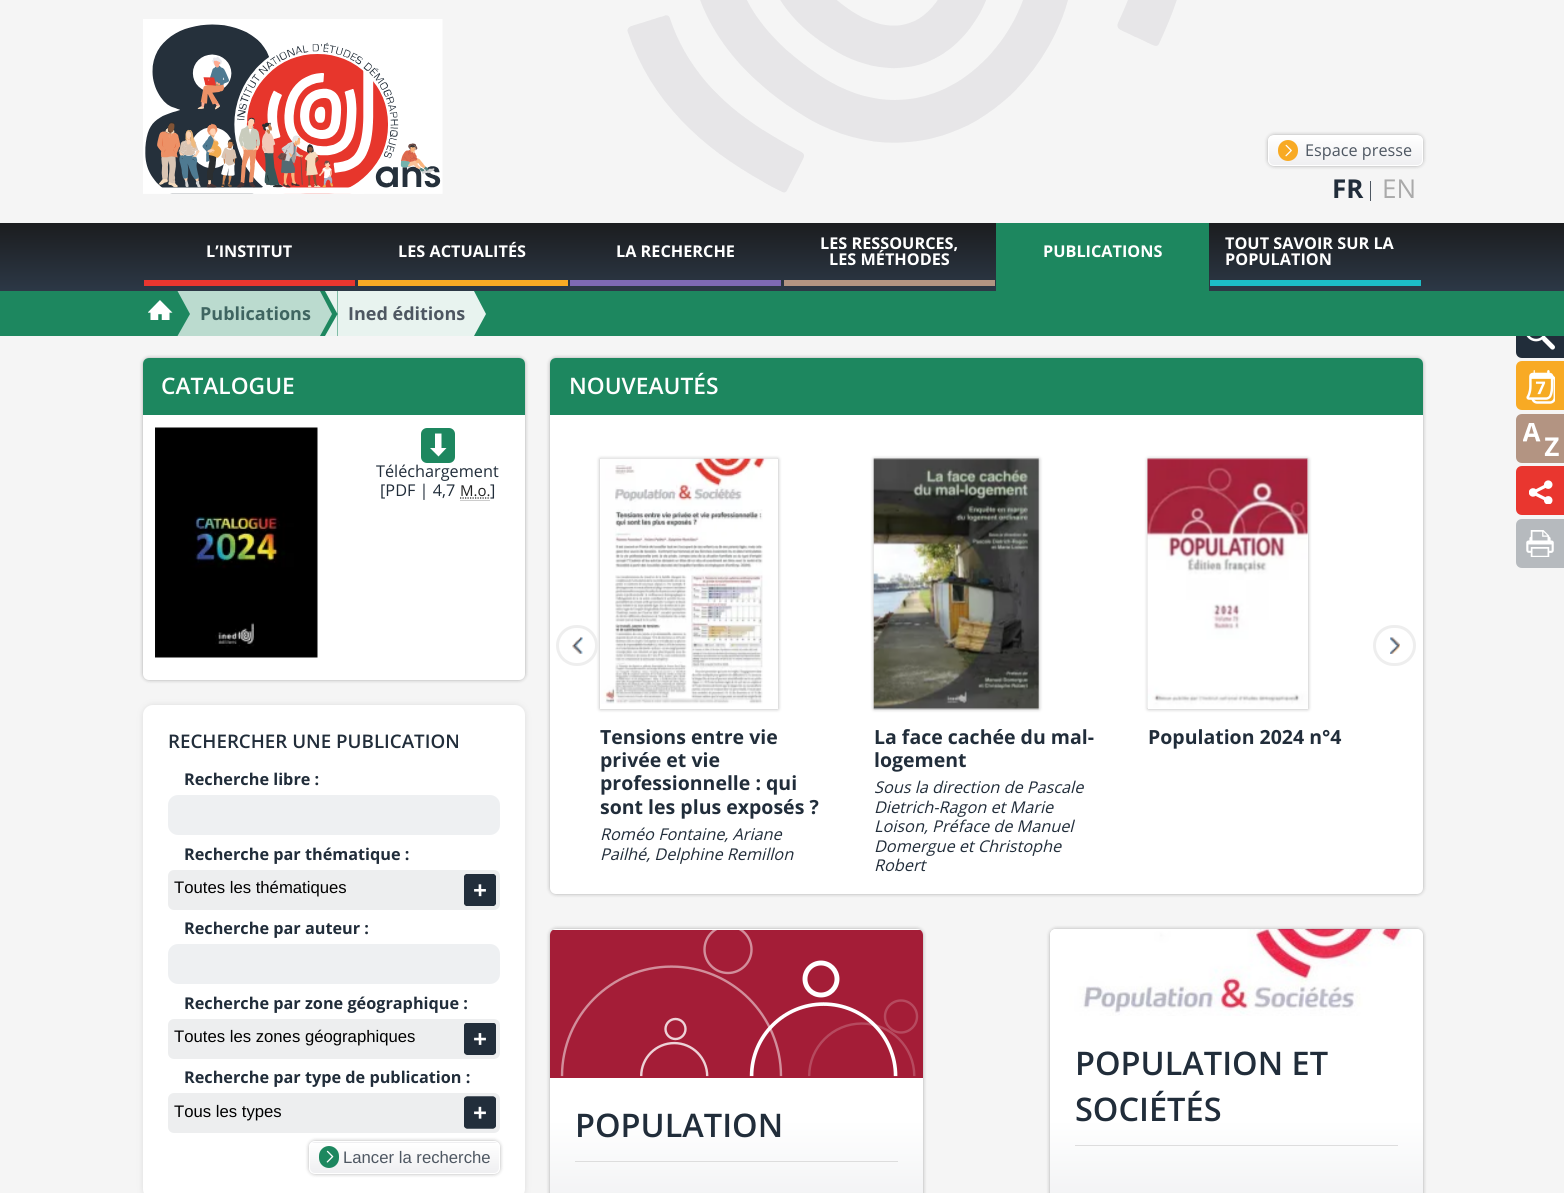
#include <cairo.h>
#include <math.h>
#include <stddef.h>

typedef struct { double x, y; const char *s; } line_t;

static void ink(cairo_t *ctx, unsigned color) {
    cairo_set_source_rgb(ctx, (color >> 16) / 255.0, (color >> 8 & 255) / 255.0, (color & 255) / 255.0);
}

static void round_path(cairo_t *ctx, double x, double y, double w, double h, double r) {
    cairo_new_sub_path(ctx);
    cairo_arc(ctx, x + w - r, y + h - r, r, 0, M_PI / 2);
    cairo_arc(ctx, x + r, y + h - r, r, M_PI / 2, M_PI);
    cairo_arc(ctx, x + r, y + r, r, M_PI, 1.5 * M_PI);
    cairo_arc(ctx, x + w - r, y + r, r, 1.5 * M_PI, 2 * M_PI);
    cairo_close_path(ctx);
}

static void blur_box(cairo_t *ctx, double x, double y, double w, double h, double r, double blur, double alpha) {
    cairo_push_group_with_content(ctx, CAIRO_CONTENT_ALPHA);
    cairo_set_operator(ctx, CAIRO_OPERATOR_SOURCE);
    for (int i = 15; i >= -15 && fmin(w, h) + blur * i / 3 > 0; i -= 2) {
        double e = blur * i / 6;
        cairo_set_source_rgba(ctx, 0, 0, 0, alpha * erfc((i - 1) / 8.5) / 2);
        round_path(ctx, x - e, y - e, w + 2 * e, h + 2 * e, fmax(0, fmin(r + e + blur * .6, fmin(w, h) / 2 + e)));
        cairo_fill(ctx);
    }
    cairo_pattern_t *soft = cairo_pop_group(ctx);
    cairo_mask(ctx, soft);
    cairo_pattern_destroy(soft);
}

static void paste(cairo_t *ctx, const char *path, double x, double y, double w, double h) {
    cairo_surface_t *image = cairo_image_surface_create_from_png(path);
    cairo_save(ctx);
    cairo_set_source_surface(ctx, image, x, y);
    cairo_rectangle(ctx, x, y, w, h);
    cairo_fill(ctx);
    cairo_restore(ctx);
    cairo_surface_destroy(image);
}

int main(void) {
    cairo_surface_t *surface = cairo_image_surface_create(CAIRO_FORMAT_RGB24, 1564, 1193);
    cairo_t *ctx = cairo_create(surface);
    cairo_font_options_t *options = cairo_font_options_create();
    cairo_font_options_set_hint_metrics(options, CAIRO_HINT_METRICS_OFF);
    cairo_font_options_set_hint_style(options, CAIRO_HINT_STYLE_NONE);
    cairo_set_font_options(ctx, options);
    cairo_set_miter_limit(ctx, 4);
    cairo_pattern_t *gradient;
    ink(ctx, 0xF5F5F5);
    cairo_paint(ctx);
    paste(ctx, "media/1.png", 627, 0, 550, 193);
    paste(ctx, "media/2.png", 143, 19, 300, 175);
    ink(ctx, 0x000000);
    blur_box(ctx, 1268, 135, 155, 31, 6, 2, 0.3);
    cairo_save(ctx);
    round_path(ctx, 1268, 135, 155, 31, 6);
    cairo_clip(ctx);
    gradient = cairo_pattern_create_linear(1345, 136, 1345, 165);
    cairo_pattern_add_color_stop_rgba(gradient, 0, 1, 1, 1, 1);
    cairo_pattern_add_color_stop_rgba(gradient, 1, 0.937, 0.937, 0.945, 1);
    cairo_set_source(ctx, gradient);
    cairo_pattern_destroy(gradient);
    cairo_rectangle(ctx, 1268, 136, 155, 29);
    cairo_fill(ctx);
    cairo_restore(ctx);
    round_path(ctx, 1268.5, 135.5, 154, 30, 5.5);
    ink(ctx, 0xFFFFFF);
    cairo_set_line_width(ctx, 1);
    cairo_stroke(ctx);
    ink(ctx, 0xF8AA24);
    round_path(ctx, 1278, 140, 20, 21, 10);
    cairo_fill(ctx);
    paste(ctx, "media/3.png", 1285, 144, 7, 13);
    cairo_select_font_face(ctx, "Open Sans", CAIRO_FONT_SLANT_NORMAL, CAIRO_FONT_WEIGHT_NORMAL);
    cairo_set_font_size(ctx, 16.25);
    ink(ctx, 0x4E5762);
    cairo_move_to(ctx, 1305, 156);
    cairo_show_text(ctx, "Espace presse");
    cairo_rectangle(ctx, 1370, 181, 1, 20);
    cairo_fill(ctx);
    cairo_select_font_face(ctx, "Open Sans", CAIRO_FONT_SLANT_NORMAL, CAIRO_FONT_WEIGHT_BOLD);
    cairo_set_font_size(ctx, 26);
    ink(ctx, 0x212D3A);
    cairo_move_to(ctx, 1332, 198);
    cairo_show_text(ctx, "FR");
    cairo_select_font_face(ctx, "Open Sans", CAIRO_FONT_SLANT_NORMAL, CAIRO_FONT_WEIGHT_NORMAL);
    ink(ctx, 0xAAAAAA);
    cairo_move_to(ctx, 1382, 198);
    cairo_show_text(ctx, "EN");
    gradient = cairo_pattern_create_linear(783, 222, 783, 291);
    cairo_pattern_add_color_stop_rgba(gradient, 0, 0.106, 0.11, 0.118, 1);
    cairo_pattern_add_color_stop_rgba(gradient, 1, 0.173, 0.22, 0.275, 1);
    cairo_set_source(ctx, gradient);
    cairo_pattern_destroy(gradient);
    cairo_rectangle(ctx, 0, 223, 1564, 68);
    cairo_fill(ctx);
    ink(ctx, 0xE9362F);
    cairo_rectangle(ctx, 144, 280, 211, 6);
    cairo_fill(ctx);
    cairo_select_font_face(ctx, "Open Sans", CAIRO_FONT_SLANT_NORMAL, CAIRO_FONT_WEIGHT_BOLD);
    cairo_set_font_size(ctx, 16.25);
    ink(ctx, 0xFFFFFF);
    cairo_move_to(ctx, 206, 257);
    cairo_show_text(ctx, "L’INSTITUT");
    ink(ctx, 0xF8AA24);
    cairo_rectangle(ctx, 358, 280, 210, 6);
    cairo_fill(ctx);
    ink(ctx, 0xFFFFFF);
    cairo_move_to(ctx, 398, 257);
    cairo_show_text(ctx, "LES ACTUALITÉS");
    ink(ctx, 0x7E69B4);
    cairo_rectangle(ctx, 570, 280, 211, 6);
    cairo_fill(ctx);
    ink(ctx, 0xFFFFFF);
    cairo_move_to(ctx, 616, 257);
    cairo_show_text(ctx, "LA RECHERCHE");
    ink(ctx, 0xB39482);
    cairo_rectangle(ctx, 784, 280, 211, 6);
    cairo_fill(ctx);
    ink(ctx, 0xFFFFFF);
    cairo_move_to(ctx, 820, 249);
    cairo_show_text(ctx, "LES RESSOURCES,");
    cairo_move_to(ctx, 829, 265);
    cairo_show_text(ctx, "LES MÉTHODES");
    ink(ctx, 0x1D875F);
    cairo_rectangle(ctx, 996, 223, 213, 68);
    cairo_fill(ctx);
    ink(ctx, 0xFFFFFF);
    cairo_move_to(ctx, 1043, 257);
    cairo_show_text(ctx, "PUBLICATIONS");
    ink(ctx, 0x1CBDC7);
    cairo_rectangle(ctx, 1210, 280, 211, 6);
    cairo_fill(ctx);
    ink(ctx, 0xFFFFFF);
    cairo_move_to(ctx, 1225, 249);
    cairo_show_text(ctx, "TOUT SAVOIR SUR LA");
    cairo_move_to(ctx, 1225, 265);
    cairo_show_text(ctx, "POPULATION");
    ink(ctx, 0x212D3A);
    cairo_new_path(ctx);
    cairo_move_to(ctx, 1522, 309);
    cairo_line_to(ctx, 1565, 309);
    cairo_line_to(ctx, 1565, 358);
    cairo_line_to(ctx, 1522, 358);
    cairo_curve_to(ctx, 1518.5, 358, 1516, 355.5, 1516, 352);
    cairo_line_to(ctx, 1516, 315);
    cairo_curve_to(ctx, 1516, 311.5, 1518.5, 309, 1522, 309);
    cairo_close_path(ctx);
    cairo_fill(ctx);
    ink(ctx, 0x1D875F);
    cairo_rectangle(ctx, 0, 291, 1564, 45);
    cairo_fill(ctx);
    paste(ctx, "media/4.png", 148, 300, 25, 20);
    ink(ctx, 0xBBDBCF);
    cairo_new_path(ctx);
    cairo_move_to(ctx, 177.5, 291);
    cairo_line_to(ctx, 190, 291);
    cairo_line_to(ctx, 190, 314);
    cairo_close_path(ctx);
    cairo_move_to(ctx, 190, 336);
    cairo_line_to(ctx, 177.5, 336);
    cairo_line_to(ctx, 190, 314);
    cairo_close_path(ctx);
    cairo_fill(ctx);
    cairo_rectangle(ctx, 190, 291, 130, 45);
    cairo_fill(ctx);
    cairo_set_font_size(ctx, 18);
    ink(ctx, 0x3F6561);
    cairo_move_to(ctx, 200, 320);
    cairo_show_text(ctx, "Publications");
    ink(ctx, 0xBBDBCF);
    cairo_new_path(ctx);
    cairo_move_to(ctx, 320, 336);
    cairo_line_to(ctx, 320, 291);
    cairo_line_to(ctx, 332, 314);
    cairo_close_path(ctx);
    cairo_fill(ctx);
    ink(ctx, 0xE8F3EF);
    cairo_new_path(ctx);
    cairo_move_to(ctx, 325, 291);
    cairo_line_to(ctx, 337.5, 291);
    cairo_line_to(ctx, 337.5, 314);
    cairo_close_path(ctx);
    cairo_move_to(ctx, 337.5, 336);
    cairo_line_to(ctx, 325, 336);
    cairo_line_to(ctx, 337.5, 314);
    cairo_close_path(ctx);
    cairo_fill(ctx);
    cairo_rectangle(ctx, 338, 291, 136, 45);
    cairo_fill(ctx);
    ink(ctx, 0x4E5762);
    cairo_move_to(ctx, 348, 320);
    cairo_show_text(ctx, "Ined éditions");
    ink(ctx, 0xE8F3EF);
    cairo_new_path(ctx);
    cairo_move_to(ctx, 474, 336);
    cairo_line_to(ctx, 474, 291);
    cairo_line_to(ctx, 486, 314);
    cairo_close_path(ctx);
    cairo_fill(ctx);
    paste(ctx, "media/5.png", 1526, 336, 29, 14);
    ink(ctx, 0xF8AA24);
    cairo_new_path(ctx);
    cairo_move_to(ctx, 1522, 361);
    cairo_line_to(ctx, 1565, 361);
    cairo_line_to(ctx, 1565, 410);
    cairo_line_to(ctx, 1522, 410);
    cairo_curve_to(ctx, 1518.5, 410, 1516, 407.5, 1516, 404);
    cairo_line_to(ctx, 1516, 367);
    cairo_curve_to(ctx, 1516, 363.5, 1518.5, 361, 1522, 361);
    cairo_close_path(ctx);
    cairo_fill(ctx);
    paste(ctx, "media/6.png", 1526, 370, 29, 34);
    ink(ctx, 0xB39482);
    cairo_new_path(ctx);
    cairo_move_to(ctx, 1522, 414);
    cairo_line_to(ctx, 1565, 414);
    cairo_line_to(ctx, 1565, 463);
    cairo_line_to(ctx, 1522, 463);
    cairo_curve_to(ctx, 1518.5, 463, 1516, 460.5, 1516, 457);
    cairo_line_to(ctx, 1516, 420);
    cairo_curve_to(ctx, 1516, 416.5, 1518.5, 414, 1522, 414);
    cairo_close_path(ctx);
    cairo_fill(ctx);
    paste(ctx, "media/7.png", 1523, 423, 36, 33);
    ink(ctx, 0xE9362F);
    cairo_new_path(ctx);
    cairo_move_to(ctx, 1522, 466);
    cairo_line_to(ctx, 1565, 466);
    cairo_line_to(ctx, 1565, 515);
    cairo_line_to(ctx, 1522, 515);
    cairo_curve_to(ctx, 1518.5, 515, 1516, 512.5, 1516, 509);
    cairo_line_to(ctx, 1516, 472);
    cairo_curve_to(ctx, 1516, 468.5, 1518.5, 466, 1522, 466);
    cairo_close_path(ctx);
    cairo_fill(ctx);
    paste(ctx, "media/8.png", 1529, 480, 24, 24);
    ink(ctx, 0xB6BABE);
    cairo_new_path(ctx);
    cairo_move_to(ctx, 1522, 519);
    cairo_line_to(ctx, 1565, 519);
    cairo_line_to(ctx, 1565, 568);
    cairo_line_to(ctx, 1522, 568);
    cairo_curve_to(ctx, 1518.5, 568, 1516, 565.5, 1516, 562);
    cairo_line_to(ctx, 1516, 525);
    cairo_curve_to(ctx, 1516, 521.5, 1518.5, 519, 1522, 519);
    cairo_close_path(ctx);
    cairo_fill(ctx);
    paste(ctx, "media/9.png", 1526, 530, 28, 27);
    ink(ctx, 0x000000);
    blur_box(ctx, 143, 358, 382, 322, 6, 2, 0.3);
    ink(ctx, 0xFFFFFF);
    round_path(ctx, 143, 358, 382, 322, 6);
    cairo_fill(ctx);
    ink(ctx, 0x1D875F);
    cairo_new_path(ctx);
    cairo_move_to(ctx, 149, 358);
    cairo_line_to(ctx, 519, 358);
    cairo_curve_to(ctx, 522.5, 358, 525, 360.5, 525, 364);
    cairo_line_to(ctx, 525, 415);
    cairo_line_to(ctx, 143, 415);
    cairo_line_to(ctx, 143, 364);
    cairo_curve_to(ctx, 143, 360.5, 145.5, 358, 149, 358);
    cairo_close_path(ctx);
    cairo_fill(ctx);
    cairo_select_font_face(ctx, "Open Sans SemiBold", CAIRO_FONT_SLANT_NORMAL, CAIRO_FONT_WEIGHT_NORMAL);
    cairo_set_font_size(ctx, 22.75);
    ink(ctx, 0xFFFFFF);
    cairo_move_to(ctx, 161, 394);
    cairo_show_text(ctx, "CATALOGUE");
    paste(ctx, "media/10.png", 155, 427, 163, 231);
    ink(ctx, 0x1D875F);
    round_path(ctx, 421, 428, 34, 35, 6);
    cairo_fill(ctx);
    ink(ctx, 0xFFFFFF);
    cairo_new_path(ctx);
    cairo_move_to(ctx, 435, 433.5);
    cairo_line_to(ctx, 441.5, 433.5);
    cairo_line_to(ctx, 441.5, 448);
    cairo_line_to(ctx, 435, 448);
    cairo_close_path(ctx);
    cairo_move_to(ctx, 435.5, 448);
    cairo_line_to(ctx, 430, 448);
    cairo_line_to(ctx, 438.5, 456.5);
    cairo_line_to(ctx, 446.5, 448);
    cairo_close_path(ctx);
    cairo_fill(ctx);
    cairo_select_font_face(ctx, "Open Sans", CAIRO_FONT_SLANT_NORMAL, CAIRO_FONT_WEIGHT_NORMAL);
    cairo_set_font_size(ctx, 16.25);
    ink(ctx, 0x212D3A);
    cairo_move_to(ctx, 376, 477);
    cairo_show_text(ctx, "Téléchargement");
    cairo_move_to(ctx, 380, 496);
    cairo_show_text(ctx, "[PDF | 4,7");
    cairo_set_font_size(ctx, 15);
    ink(ctx, 0x222222);
    cairo_move_to(ctx, 460, 496);
    cairo_show_text(ctx, "M.o.");
    cairo_new_path(ctx);
    cairo_move_to(ctx, 460, 498);
    cairo_line_to(ctx, 489.5, 498);
    cairo_set_line_width(ctx, 1.2);
    cairo_set_dash(ctx, (double[]){1.25, 1.25}, 2, 0);
    cairo_stroke(ctx);
    cairo_set_font_size(ctx, 16.25);
    ink(ctx, 0x212D3A);
    cairo_move_to(ctx, 490, 496);
    cairo_show_text(ctx, "]");
    ink(ctx, 0xCCCCCC);
    cairo_rectangle(ctx, 460, 500, 30, 1);
    cairo_fill(ctx);
    ink(ctx, 0xDDDDDD);
    blur_box(ctx, 143, 705, 382, 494, 10, 3, 1);
    ink(ctx, 0xFFFFFF);
    round_path(ctx, 143, 705, 382, 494, 10);
    cairo_fill(ctx);
    cairo_select_font_face(ctx, "Open Sans SemiBold", CAIRO_FONT_SLANT_NORMAL, CAIRO_FONT_WEIGHT_NORMAL);
    cairo_set_font_size(ctx, 18.75);
    ink(ctx, 0x212D3A);
    cairo_move_to(ctx, 168, 748);
    cairo_show_text(ctx, "RECHERCHER UNE PUBLICATION");
    cairo_select_font_face(ctx, "Open Sans", CAIRO_FONT_SLANT_NORMAL, CAIRO_FONT_WEIGHT_BOLD);
    cairo_set_font_size(ctx, 16.25);
    cairo_move_to(ctx, 184, 785);
    cairo_show_text(ctx, "Recherche libre :");
    ink(ctx, 0xEEF0F2);
    round_path(ctx, 168, 795, 332, 40, 10);
    cairo_fill(ctx);
    ink(ctx, 0x212D3A);
    cairo_move_to(ctx, 184, 860);
    cairo_show_text(ctx, "Recherche par thématique :");
    ink(ctx, 0xEDEEEF);
    round_path(ctx, 168, 870, 332, 40, 6);
    cairo_fill(ctx);
    cairo_select_font_face(ctx, "Liberation Sans", CAIRO_FONT_SLANT_NORMAL, CAIRO_FONT_WEIGHT_NORMAL);
    cairo_set_font_size(ctx, 16.7);
    ink(ctx, 0x000000);
    cairo_move_to(ctx, 174, 893);
    cairo_show_text(ctx, "Toutes les thématiques");
    paste(ctx, "media/11.png", 464, 874, 32, 32);
    cairo_select_font_face(ctx, "Open Sans", CAIRO_FONT_SLANT_NORMAL, CAIRO_FONT_WEIGHT_BOLD);
    cairo_set_font_size(ctx, 16.25);
    ink(ctx, 0x212D3A);
    cairo_move_to(ctx, 184, 934);
    cairo_show_text(ctx, "Recherche par auteur :");
    ink(ctx, 0xEEF0F2);
    round_path(ctx, 168, 944, 332, 40, 10);
    cairo_fill(ctx);
    ink(ctx, 0x212D3A);
    cairo_move_to(ctx, 184, 1009);
    cairo_show_text(ctx, "Recherche par zone géographique :");
    ink(ctx, 0xEDEEEF);
    round_path(ctx, 168, 1019, 332, 40, 6);
    cairo_fill(ctx);
    cairo_select_font_face(ctx, "Liberation Sans", CAIRO_FONT_SLANT_NORMAL, CAIRO_FONT_WEIGHT_NORMAL);
    cairo_set_font_size(ctx, 16.7);
    ink(ctx, 0x000000);
    cairo_move_to(ctx, 174, 1042);
    cairo_show_text(ctx, "Toutes les zones géographiques");
    paste(ctx, "media/12.png", 464, 1023, 32, 32);
    cairo_select_font_face(ctx, "Open Sans", CAIRO_FONT_SLANT_NORMAL, CAIRO_FONT_WEIGHT_BOLD);
    cairo_set_font_size(ctx, 16.25);
    ink(ctx, 0x212D3A);
    cairo_move_to(ctx, 184, 1083);
    cairo_show_text(ctx, "Recherche par type de publication :");
    ink(ctx, 0xEDEEEF);
    round_path(ctx, 168, 1093, 332, 40, 6);
    cairo_fill(ctx);
    cairo_select_font_face(ctx, "Liberation Sans", CAIRO_FONT_SLANT_NORMAL, CAIRO_FONT_WEIGHT_NORMAL);
    cairo_set_font_size(ctx, 16.7);
    ink(ctx, 0x000000);
    cairo_move_to(ctx, 174, 1117);
    cairo_show_text(ctx, "Tous les types");
    paste(ctx, "media/13.png", 464, 1096, 32, 33);
    ink(ctx, 0x000000);
    blur_box(ctx, 309, 1141, 191, 33, 6, 2, 0.3);
    cairo_save(ctx);
    round_path(ctx, 309, 1141, 191, 33, 6);
    cairo_clip(ctx);
    gradient = cairo_pattern_create_linear(404, 1113, 404, 1143);
    cairo_pattern_add_color_stop_rgba(gradient, 0, 1, 1, 1, 1);
    cairo_pattern_add_color_stop_rgba(gradient, 1, 0.937, 0.937, 0.945, 1);
    cairo_set_source(ctx, gradient);
    cairo_pattern_destroy(gradient);
    cairo_rectangle(ctx, 309, 1141, 191, 2);
    cairo_fill(ctx);
    gradient = cairo_pattern_create_linear(404, 1143, 404, 1173);
    cairo_pattern_add_color_stop_rgba(gradient, 0, 1, 1, 1, 1);
    cairo_pattern_add_color_stop_rgba(gradient, 1, 0.937, 0.937, 0.945, 1);
    cairo_set_source(ctx, gradient);
    cairo_pattern_destroy(gradient);
    cairo_rectangle(ctx, 309, 1143, 191, 30);
    cairo_fill(ctx);
    cairo_restore(ctx);
    round_path(ctx, 309.5, 1141.5, 190, 32, 5.5);
    ink(ctx, 0xFFFFFF);
    cairo_set_line_width(ctx, 1);
    cairo_set_dash(ctx, NULL, 0, 0);
    cairo_stroke(ctx);
    ink(ctx, 0x1D875F);
    round_path(ctx, 319, 1146, 20, 22, 10);
    cairo_fill(ctx);
    paste(ctx, "media/14.png", 326, 1150, 8, 13);
    ink(ctx, 0x4E5762);
    cairo_move_to(ctx, 343, 1163);
    cairo_show_text(ctx, "Lancer la recherche");
    ink(ctx, 0x000000);
    blur_box(ctx, 550, 358, 873, 536, 6, 2, 0.3);
    ink(ctx, 0xFFFFFF);
    round_path(ctx, 550, 358, 873, 536, 6);
    cairo_fill(ctx);
    ink(ctx, 0x1D875F);
    cairo_new_path(ctx);
    cairo_move_to(ctx, 556, 358);
    cairo_line_to(ctx, 1417, 358);
    cairo_curve_to(ctx, 1420.5, 358, 1423, 360.5, 1423, 364);
    cairo_line_to(ctx, 1423, 415);
    cairo_line_to(ctx, 550, 415);
    cairo_line_to(ctx, 550, 364);
    cairo_curve_to(ctx, 550, 360.5, 552.5, 358, 556, 358);
    cairo_close_path(ctx);
    cairo_fill(ctx);
    cairo_select_font_face(ctx, "Open Sans SemiBold", CAIRO_FONT_SLANT_NORMAL, CAIRO_FONT_WEIGHT_NORMAL);
    cairo_set_font_size(ctx, 22.75);
    ink(ctx, 0xFFFFFF);
    cairo_move_to(ctx, 569, 394);
    cairo_show_text(ctx, "NOUVEAUTÉS");
    ink(ctx, 0x000000);
    blur_box(ctx, 600, 459, 178, 250, 0, 2, 0.3);
    ink(ctx, 0xFFFFFF);
    round_path(ctx, 557.5, 626.5, 39, 38, 19);
    cairo_fill_preserve(ctx);
    ink(ctx, 0xEEEEEE);
    cairo_set_line_width(ctx, 3);
    cairo_stroke(ctx);
    paste(ctx, "media/15.png", 572, 637, 11, 17);
    round_path(ctx, 1374.5, 626.5, 40, 38, 19);
    cairo_stroke(ctx);
    paste(ctx, "media/16.png", 1390, 637, 10, 17);
    ink(ctx, 0xFFFFFF);
    cairo_rectangle(ctx, 600, 459, 178, 250);
    cairo_fill(ctx);
    paste(ctx, "media/17.png", 601, 458, 176, 246);
    cairo_select_font_face(ctx, "Open Sans", CAIRO_FONT_SLANT_NORMAL, CAIRO_FONT_WEIGHT_BOLD);
    cairo_set_font_size(ctx, 19.5);
    ink(ctx, 0x212D3A);
    {
        static const line_t items[] = {
            {600, 744, "Tensions entre vie"},
            {600, 767, "privée et vie"},
            {600, 790, "professionnelle : qui"},
            {600, 814, "sont les plus exposés ?"},
        };
        for (size_t i = 0; i < sizeof items / sizeof *items; i++) {
            cairo_move_to(ctx, items[i].x, items[i].y);
            cairo_show_text(ctx, items[i].s);
        }
    }
    cairo_select_font_face(ctx, "Open Sans", CAIRO_FONT_SLANT_ITALIC, CAIRO_FONT_WEIGHT_NORMAL);
    cairo_set_font_size(ctx, 16.25);
    cairo_move_to(ctx, 600, 840);
    cairo_show_text(ctx, "Roméo Fontaine, Ariane");
    cairo_move_to(ctx, 600, 860);
    cairo_show_text(ctx, "Pailhé, Delphine Remillon");
    ink(ctx, 0x000000);
    blur_box(ctx, 874, 459, 165, 250, 0, 2, 0.3);
    ink(ctx, 0xFFFFFF);
    cairo_rectangle(ctx, 874, 459, 165, 250);
    cairo_fill(ctx);
    paste(ctx, "media/18.png", 873, 458, 166, 252);
    cairo_select_font_face(ctx, "Open Sans", CAIRO_FONT_SLANT_NORMAL, CAIRO_FONT_WEIGHT_BOLD);
    cairo_set_font_size(ctx, 19.5);
    ink(ctx, 0x212D3A);
    cairo_move_to(ctx, 874, 744);
    cairo_show_text(ctx, "La face cachée du mal-");
    cairo_move_to(ctx, 874, 767);
    cairo_show_text(ctx, "logement");
    cairo_select_font_face(ctx, "Open Sans", CAIRO_FONT_SLANT_ITALIC, CAIRO_FONT_WEIGHT_NORMAL);
    cairo_set_font_size(ctx, 16.25);
    {
        static const line_t items[] = {
            {874, 793, "Sous la direction de Pascale"},
            {874, 813, "Dietrich-Ragon et Marie"},
            {874, 832, "Loison, Préface de Manuel"},
            {874, 852, "Domergue et Christophe"},
            {874, 871, "Robert"},
        };
        for (size_t i = 0; i < sizeof items / sizeof *items; i++) {
            cairo_move_to(ctx, items[i].x, items[i].y);
            cairo_show_text(ctx, items[i].s);
        }
    }
    ink(ctx, 0x000000);
    blur_box(ctx, 1148, 459, 160, 250, 0, 2, 0.3);
    ink(ctx, 0xFFFFFF);
    cairo_rectangle(ctx, 1148, 459, 160, 250);
    cairo_fill(ctx);
    paste(ctx, "media/19.png", 1147, 458, 161, 250);
    cairo_select_font_face(ctx, "Open Sans", CAIRO_FONT_SLANT_NORMAL, CAIRO_FONT_WEIGHT_BOLD);
    cairo_set_font_size(ctx, 19.5);
    ink(ctx, 0x212D3A);
    cairo_move_to(ctx, 1148, 744);
    cairo_show_text(ctx, "Population 2024 n°4");
    ink(ctx, 0x000000);
    blur_box(ctx, 1050, 929, 373, 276, 6, 2, 0.3);
    gradient = cairo_pattern_create_linear(1236, 929, 1236, 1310);
    cairo_pattern_add_color_stop_rgba(gradient, 0.5, 1, 1, 1, 1);
    cairo_pattern_add_color_stop_rgba(gradient, 0.8, 0.929, 0.933, 0.941, 1);
    cairo_set_source(ctx, gradient);
    cairo_pattern_destroy(gradient);
    round_path(ctx, 1050, 929, 373, 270, 6);
    cairo_fill(ctx);
    paste(ctx, "media/20.png", 1050, 928, 370, 88);
    ink(ctx, 0xDDDDDD);
    cairo_rectangle(ctx, 1075, 1145, 323, 1);
    cairo_fill(ctx);
    cairo_select_font_face(ctx, "Open Sans SemiBold", CAIRO_FONT_SLANT_NORMAL, CAIRO_FONT_WEIGHT_NORMAL);
    cairo_set_font_size(ctx, 32.5);
    ink(ctx, 0x212D3A);
    cairo_move_to(ctx, 1075, 1075);
    cairo_show_text(ctx, "POPULATION ET");
    cairo_move_to(ctx, 1075, 1121);
    cairo_show_text(ctx, "SOCIÉTÉS");
    ink(ctx, 0x000000);
    blur_box(ctx, 550, 929, 373, 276, 6, 2, 0.3);
    gradient = cairo_pattern_create_linear(736, 929, 736, 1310);
    cairo_pattern_add_color_stop_rgba(gradient, 0.5, 1, 1, 1, 1);
    cairo_pattern_add_color_stop_rgba(gradient, 0.8, 0.929, 0.933, 0.941, 1);
    cairo_set_source(ctx, gradient);
    cairo_pattern_destroy(gradient);
    round_path(ctx, 550, 929, 373, 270, 6);
    cairo_fill(ctx);
    paste(ctx, "media/21.png", 550, 930, 373, 148);
    ink(ctx, 0xDDDDDD);
    cairo_rectangle(ctx, 575, 1161, 323, 1);
    cairo_fill(ctx);
    ink(ctx, 0x212D3A);
    cairo_move_to(ctx, 575, 1137);
    cairo_show_text(ctx, "POPULATION");
    cairo_surface_write_to_png(surface, "image.png");
    cairo_font_options_destroy(options);
    cairo_destroy(ctx);
    cairo_surface_destroy(surface);
    return 0;
}
